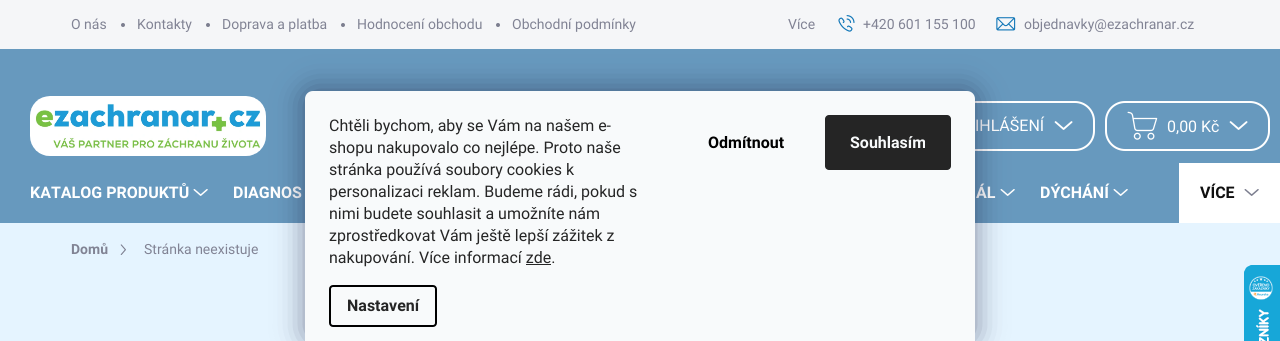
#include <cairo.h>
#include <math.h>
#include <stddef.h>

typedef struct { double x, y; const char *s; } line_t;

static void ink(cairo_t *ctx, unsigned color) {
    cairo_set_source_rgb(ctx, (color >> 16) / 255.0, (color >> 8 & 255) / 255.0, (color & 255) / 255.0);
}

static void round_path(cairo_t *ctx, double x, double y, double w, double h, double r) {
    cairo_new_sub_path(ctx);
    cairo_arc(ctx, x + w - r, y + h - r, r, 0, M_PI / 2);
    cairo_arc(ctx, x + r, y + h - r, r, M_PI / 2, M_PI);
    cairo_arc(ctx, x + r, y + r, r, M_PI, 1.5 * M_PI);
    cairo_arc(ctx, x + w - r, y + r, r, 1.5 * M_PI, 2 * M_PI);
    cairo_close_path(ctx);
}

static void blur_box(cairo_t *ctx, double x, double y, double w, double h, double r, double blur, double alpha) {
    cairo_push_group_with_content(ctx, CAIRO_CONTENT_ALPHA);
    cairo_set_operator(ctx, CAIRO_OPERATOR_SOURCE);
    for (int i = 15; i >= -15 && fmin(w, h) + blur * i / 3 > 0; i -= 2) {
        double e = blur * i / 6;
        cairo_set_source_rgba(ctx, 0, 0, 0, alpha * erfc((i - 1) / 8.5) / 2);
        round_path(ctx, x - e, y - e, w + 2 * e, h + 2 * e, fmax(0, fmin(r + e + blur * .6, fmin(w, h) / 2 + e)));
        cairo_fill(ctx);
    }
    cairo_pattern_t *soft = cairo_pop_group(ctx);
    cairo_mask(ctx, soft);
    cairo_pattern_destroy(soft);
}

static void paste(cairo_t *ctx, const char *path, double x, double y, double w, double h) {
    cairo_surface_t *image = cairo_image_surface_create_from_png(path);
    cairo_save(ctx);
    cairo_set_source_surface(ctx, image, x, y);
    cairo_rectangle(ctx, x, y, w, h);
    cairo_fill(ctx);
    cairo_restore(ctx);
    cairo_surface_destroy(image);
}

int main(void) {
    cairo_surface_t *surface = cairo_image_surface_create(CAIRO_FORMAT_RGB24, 1280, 341);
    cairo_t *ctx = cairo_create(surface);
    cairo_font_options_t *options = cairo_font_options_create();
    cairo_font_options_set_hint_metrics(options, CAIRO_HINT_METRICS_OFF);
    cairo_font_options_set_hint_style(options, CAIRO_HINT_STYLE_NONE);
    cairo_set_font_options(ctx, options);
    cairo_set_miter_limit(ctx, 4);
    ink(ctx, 0xE5F4FF);
    cairo_paint(ctx);
    ink(ctx, 0xF5F6F8);
    cairo_rectangle(ctx, 0, 0, 1280, 49);
    cairo_fill(ctx);
    cairo_select_font_face(ctx, "Roboto", CAIRO_FONT_SLANT_NORMAL, CAIRO_FONT_WEIGHT_NORMAL);
    cairo_set_font_size(ctx, 14);
    ink(ctx, 0x818394);
    cairo_move_to(ctx, 71, 29);
    cairo_show_text(ctx, "O nás");
    ink(ctx, 0x7C7E8F);
    cairo_new_path(ctx);
    cairo_arc(ctx, 123, 25, 2, 0, 2 * M_PI);
    cairo_fill(ctx);
    ink(ctx, 0x818394);
    cairo_move_to(ctx, 137, 29);
    cairo_show_text(ctx, "Kontakty");
    ink(ctx, 0x7C7E8F);
    cairo_new_path(ctx);
    cairo_arc(ctx, 208, 25, 2, 0, 2 * M_PI);
    cairo_fill(ctx);
    ink(ctx, 0x818394);
    cairo_move_to(ctx, 222, 29);
    cairo_show_text(ctx, "Doprava a platba");
    ink(ctx, 0x7C7E8F);
    cairo_new_path(ctx);
    cairo_arc(ctx, 343, 25, 2, 0, 2 * M_PI);
    cairo_fill(ctx);
    ink(ctx, 0x818394);
    cairo_move_to(ctx, 357, 29);
    cairo_show_text(ctx, "Hodnocení obchodu");
    ink(ctx, 0x7C7E8F);
    cairo_new_path(ctx);
    cairo_arc(ctx, 498, 25, 2, 0, 2 * M_PI);
    cairo_fill(ctx);
    ink(ctx, 0x818394);
    cairo_move_to(ctx, 512, 29);
    cairo_show_text(ctx, "Obchodní podmínky");
    cairo_move_to(ctx, 788, 29);
    cairo_show_text(ctx, "Více");
    paste(ctx, "media/1.png", 838, 15, 17, 17);
    cairo_move_to(ctx, 863, 29);
    cairo_show_text(ctx, "+420 601 155 100");
    paste(ctx, "media/2.png", 996, 17, 20, 14);
    cairo_move_to(ctx, 1024, 29);
    cairo_show_text(ctx, "objednavky@ezachranar.cz");
    ink(ctx, 0x6799BE);
    cairo_rectangle(ctx, 0, 49, 1280, 174);
    cairo_fill(ctx);
    paste(ctx, "media/3.png", 30, 96, 236, 60);
    round_path(ctx, 905, 102, 189, 48, 19);
    ink(ctx, 0xFFFFFF);
    cairo_stroke(ctx);
    cairo_set_font_size(ctx, 16);
    cairo_move_to(ctx, 975, 131);
    cairo_show_text(ctx, "IHLÁŠENÍ");
    paste(ctx, "media/4.png", 1054, 121, 19, 9);
    round_path(ctx, 1106, 102, 163, 48, 19);
    cairo_stroke(ctx);
    paste(ctx, "media/5.png", 1127, 111, 31, 29);
    cairo_move_to(ctx, 1167, 132);
    cairo_show_text(ctx, "0,00 Kč");
    paste(ctx, "media/4.png", 1229, 121, 19, 9);
    cairo_select_font_face(ctx, "Roboto", CAIRO_FONT_SLANT_NORMAL, CAIRO_FONT_WEIGHT_BOLD);
    cairo_move_to(ctx, 30, 198);
    cairo_show_text(ctx, "KATALOG PRODUKTŮ");
    paste(ctx, "media/6.png", 193, 189, 15, 7);
    cairo_move_to(ctx, 233, 198);
    cairo_show_text(ctx, "DIAGNOS");
    cairo_move_to(ctx, 976, 198);
    cairo_show_text(ctx, "ÁL");
    paste(ctx, "media/6.png", 1000, 189, 15, 7);
    cairo_move_to(ctx, 1040, 198);
    cairo_show_text(ctx, "DÝCHÁNÍ");
    paste(ctx, "media/6.png", 1113, 189, 15, 7);
    cairo_rectangle(ctx, 1179, 163, 101, 60);
    cairo_fill(ctx);
    ink(ctx, 0x0F0F0F);
    cairo_move_to(ctx, 1200, 198);
    cairo_show_text(ctx, "VÍCE");
    paste(ctx, "media/7.png", 1244, 189, 15, 7);
    cairo_set_font_size(ctx, 14);
    ink(ctx, 0x818394);
    cairo_move_to(ctx, 71, 254);
    cairo_show_text(ctx, "Domů");
    paste(ctx, "media/8.png", 120, 244, 6, 11);
    cairo_select_font_face(ctx, "Roboto", CAIRO_FONT_SLANT_NORMAL, CAIRO_FONT_WEIGHT_NORMAL);
    cairo_move_to(ctx, 144, 254);
    cairo_show_text(ctx, "Stránka neexistuje");
    ink(ctx, 0x1B1939);
    blur_box(ctx, 305, 91, 670, 250, 8, 15, 0.5);
    ink(ctx, 0xF8FAFB);
    cairo_new_path(ctx);
    cairo_move_to(ctx, 313, 91);
    cairo_line_to(ctx, 967, 91);
    cairo_curve_to(ctx, 971.5, 91, 975, 94.5, 975, 99);
    cairo_line_to(ctx, 975, 341);
    cairo_line_to(ctx, 305, 341);
    cairo_line_to(ctx, 305, 99);
    cairo_curve_to(ctx, 305, 94.5, 308.5, 91, 313, 91);
    cairo_close_path(ctx);
    cairo_fill(ctx);
    cairo_set_font_size(ctx, 16);
    ink(ctx, 0x252525);
    {
        static const line_t items[] = {
            {329, 131, "Chtěli bychom, aby se Vám na našem e-"},
            {329, 153, "shopu nakupovalo co nejlépe. Proto naše"},
            {329, 175, "stránka používá soubory cookies k"},
            {329, 197, "personalizaci reklam. Budeme rádi, pokud s"},
            {329, 219, "nimi budete souhlasit a umožníte nám"},
            {329, 241, "zprostředkovat Vám ještě lepší zážitek z"},
            {329, 263, "nakupování. Více informací zde."},
        };
        for (size_t i = 0; i < sizeof items / sizeof *items; i++) {
            cairo_move_to(ctx, items[i].x, items[i].y);
            cairo_show_text(ctx, items[i].s);
        }
    }
    cairo_rectangle(ctx, 526, 264, 25, 1);
    cairo_fill(ctx);
    round_path(ctx, 330, 286, 106, 40, 3);
    ink(ctx, 0x000000);
    cairo_stroke(ctx);
    cairo_select_font_face(ctx, "Roboto", CAIRO_FONT_SLANT_NORMAL, CAIRO_FONT_WEIGHT_BOLD);
    ink(ctx, 0x252525);
    cairo_move_to(ctx, 347, 311);
    cairo_show_text(ctx, "Nastavení");
    ink(ctx, 0x000000);
    cairo_move_to(ctx, 708, 148);
    cairo_show_text(ctx, "Odmítnout");
    ink(ctx, 0x252525);
    round_path(ctx, 825, 115, 126, 55, 4);
    cairo_fill(ctx);
    ink(ctx, 0xF8FAFB);
    cairo_move_to(ctx, 850, 148);
    cairo_show_text(ctx, "Souhlasím");
    paste(ctx, "media/9.png", 1244, 265, 36, 76);
    cairo_surface_write_to_png(surface, "image.png");
    cairo_font_options_destroy(options);
    cairo_destroy(ctx);
    cairo_surface_destroy(surface);
    return 0;
}
